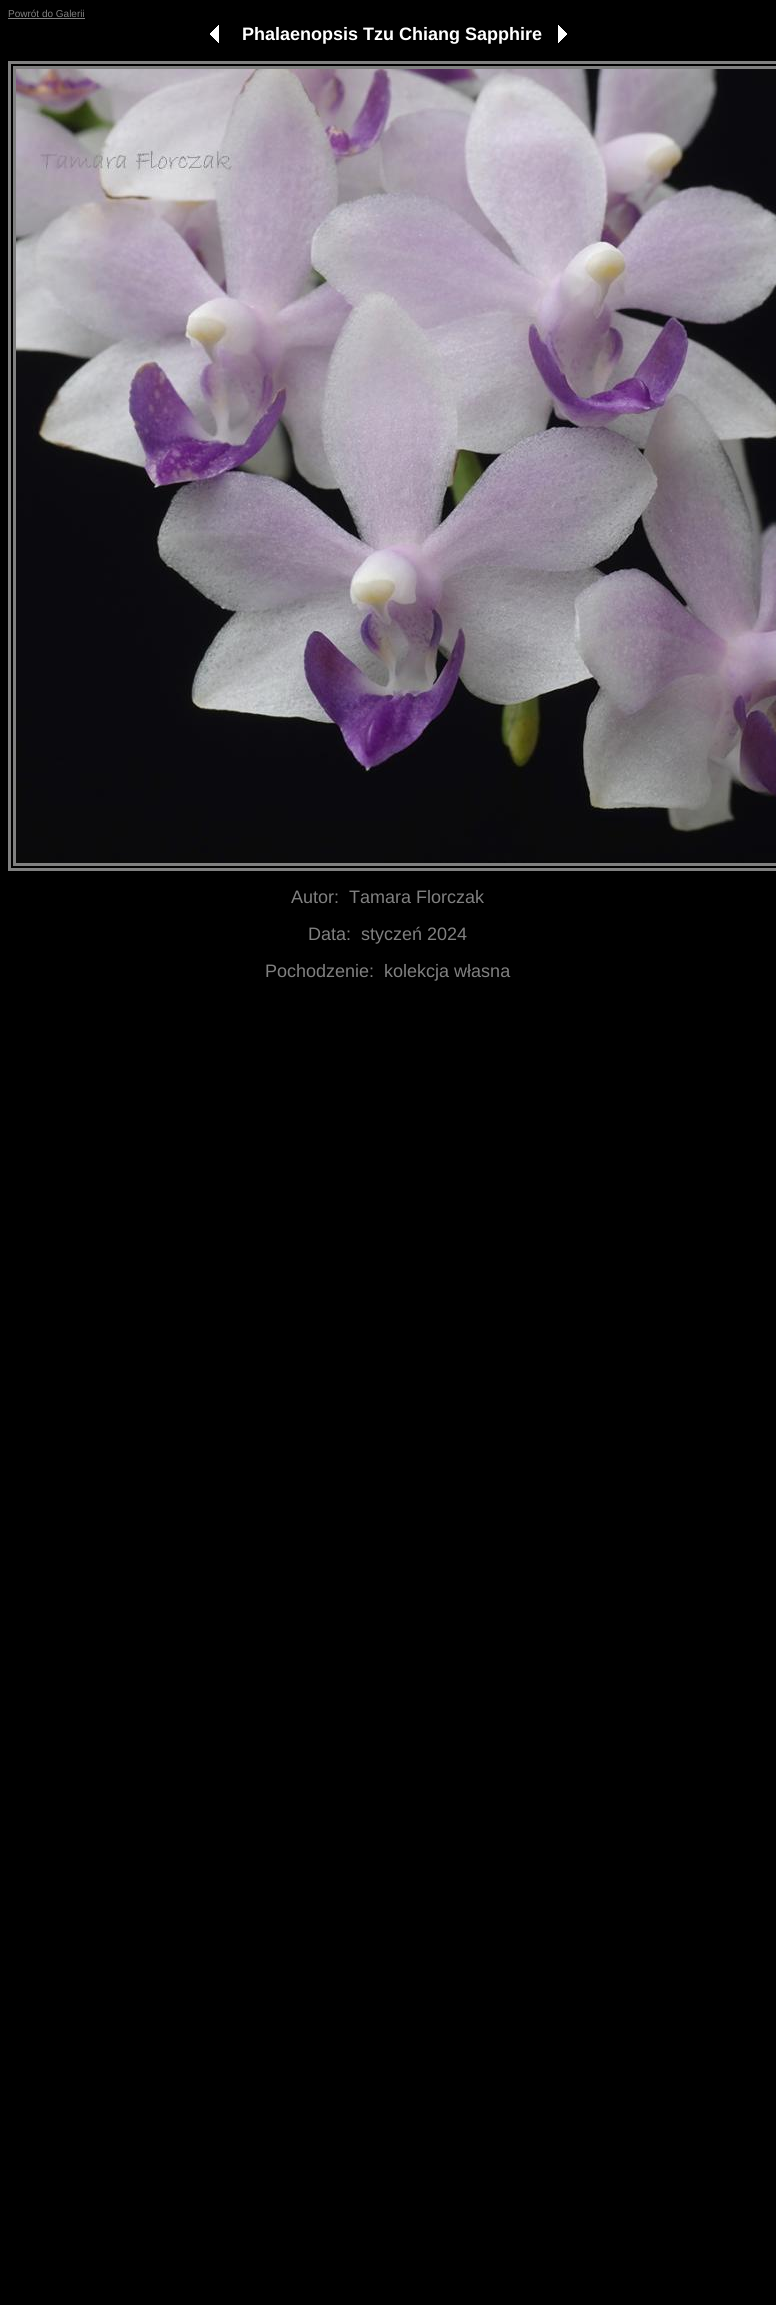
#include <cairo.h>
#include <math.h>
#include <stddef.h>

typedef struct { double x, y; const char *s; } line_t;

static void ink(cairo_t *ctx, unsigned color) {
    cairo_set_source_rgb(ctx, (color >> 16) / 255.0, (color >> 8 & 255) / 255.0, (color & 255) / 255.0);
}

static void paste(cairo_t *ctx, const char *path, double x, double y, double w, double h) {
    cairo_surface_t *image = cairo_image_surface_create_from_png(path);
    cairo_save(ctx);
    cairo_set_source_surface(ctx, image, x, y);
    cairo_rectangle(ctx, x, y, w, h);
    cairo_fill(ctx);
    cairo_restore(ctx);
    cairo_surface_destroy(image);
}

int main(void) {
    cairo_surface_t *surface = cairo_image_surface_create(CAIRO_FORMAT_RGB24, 776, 2305);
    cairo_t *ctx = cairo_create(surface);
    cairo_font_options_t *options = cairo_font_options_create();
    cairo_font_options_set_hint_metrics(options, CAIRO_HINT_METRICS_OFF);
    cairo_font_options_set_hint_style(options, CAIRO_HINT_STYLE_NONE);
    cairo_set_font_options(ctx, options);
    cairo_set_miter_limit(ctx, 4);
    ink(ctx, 0x000000);
    cairo_paint(ctx);
    cairo_select_font_face(ctx, "Liberation Sans", CAIRO_FONT_SLANT_NORMAL, CAIRO_FONT_WEIGHT_NORMAL);
    cairo_set_font_size(ctx, 10);
    ink(ctx, 0x808080);
    cairo_move_to(ctx, 8, 17);
    cairo_show_text(ctx, "Powrót do Galerii");
    cairo_rectangle(ctx, 8, 18, 77, 1);
    cairo_fill(ctx);
    paste(ctx, "media/1.png", 210, 25, 9, 18);
    cairo_select_font_face(ctx, "Liberation Sans", CAIRO_FONT_SLANT_NORMAL, CAIRO_FONT_WEIGHT_BOLD);
    cairo_set_font_size(ctx, 18);
    ink(ctx, 0xFFFFFF);
    cairo_move_to(ctx, 242, 40);
    cairo_show_text(ctx, "Phalaenopsis Tzu Chiang Sapphire");
    paste(ctx, "media/2.png", 558, 25, 9, 18);
    cairo_rectangle(ctx, 9.5, 62.5, 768, 807);
    ink(ctx, 0x808080);
    cairo_set_line_width(ctx, 3);
    cairo_stroke(ctx);
    cairo_rectangle(ctx, 14.5, 67.5, 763, 797);
    cairo_stroke(ctx);
    paste(ctx, "media/3.png", 16, 69, 760, 794);
    cairo_select_font_face(ctx, "Liberation Sans", CAIRO_FONT_SLANT_NORMAL, CAIRO_FONT_WEIGHT_NORMAL);
    {
        static const line_t items[] = {
            {291, 903, "Autor:  Tamara Florczak"},
            {308, 940, "Data:  styczeń 2024"},
            {265, 977, "Pochodzenie:  kolekcja własna"},
        };
        for (size_t i = 0; i < sizeof items / sizeof *items; i++) {
            cairo_move_to(ctx, items[i].x, items[i].y);
            cairo_show_text(ctx, items[i].s);
        }
    }
    cairo_surface_write_to_png(surface, "image.png");
    cairo_font_options_destroy(options);
    cairo_destroy(ctx);
    cairo_surface_destroy(surface);
    return 0;
}
